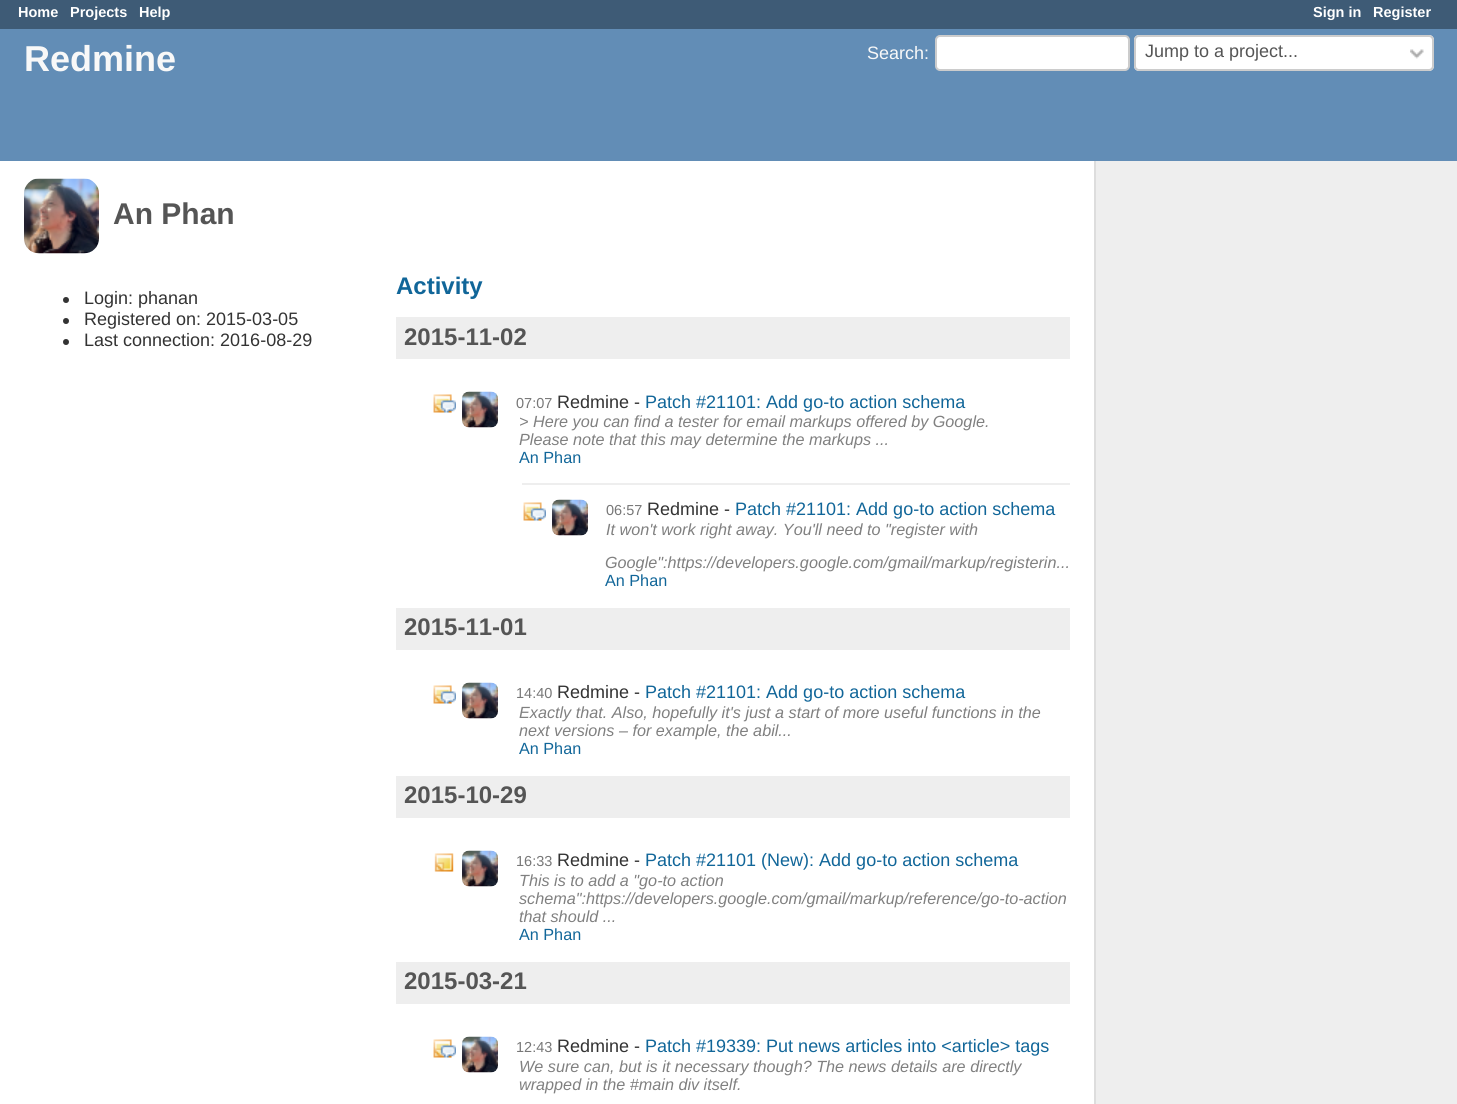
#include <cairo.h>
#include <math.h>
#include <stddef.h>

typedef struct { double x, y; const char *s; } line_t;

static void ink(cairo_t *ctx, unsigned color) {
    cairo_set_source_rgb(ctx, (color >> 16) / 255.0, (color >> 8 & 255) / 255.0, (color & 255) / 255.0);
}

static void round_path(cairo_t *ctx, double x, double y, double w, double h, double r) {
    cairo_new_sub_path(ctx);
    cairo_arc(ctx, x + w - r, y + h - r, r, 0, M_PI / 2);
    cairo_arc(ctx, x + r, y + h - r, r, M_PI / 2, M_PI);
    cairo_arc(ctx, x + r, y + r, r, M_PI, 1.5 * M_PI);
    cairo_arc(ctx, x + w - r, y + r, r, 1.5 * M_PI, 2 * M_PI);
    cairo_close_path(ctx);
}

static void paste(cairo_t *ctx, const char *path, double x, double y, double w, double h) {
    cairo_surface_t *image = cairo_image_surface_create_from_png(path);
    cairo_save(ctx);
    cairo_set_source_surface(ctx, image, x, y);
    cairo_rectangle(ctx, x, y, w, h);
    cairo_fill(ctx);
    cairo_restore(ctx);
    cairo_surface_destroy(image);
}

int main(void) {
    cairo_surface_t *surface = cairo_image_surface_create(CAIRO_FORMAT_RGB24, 1457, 1104);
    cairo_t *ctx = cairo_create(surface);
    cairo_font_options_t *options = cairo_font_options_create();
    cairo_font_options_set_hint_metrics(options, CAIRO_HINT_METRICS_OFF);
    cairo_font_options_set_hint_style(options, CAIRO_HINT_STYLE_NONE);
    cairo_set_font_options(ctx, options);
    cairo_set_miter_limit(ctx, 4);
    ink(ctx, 0xFFFFFF);
    cairo_paint(ctx);
    ink(ctx, 0x3E5B76);
    cairo_rectangle(ctx, 0, 0, 1457, 29);
    cairo_fill(ctx);
    cairo_select_font_face(ctx, "Liberation Sans", CAIRO_FONT_SLANT_NORMAL, CAIRO_FONT_WEIGHT_BOLD);
    cairo_set_font_size(ctx, 14.5);
    ink(ctx, 0xFFFFFF);
    {
        static const line_t items[] = {
            {18, 17, "Home"},
            {70, 17, "Projects"},
            {139, 17, "Help"},
            {1313, 17, "Sign in"},
            {1373, 17, "Register"},
        };
        for (size_t i = 0; i < sizeof items / sizeof *items; i++) {
            cairo_move_to(ctx, items[i].x, items[i].y);
            cairo_show_text(ctx, items[i].s);
        }
    }
    ink(ctx, 0x628DB6);
    cairo_rectangle(ctx, 0, 29, 1457, 132);
    cairo_fill(ctx);
    cairo_set_font_size(ctx, 36);
    ink(ctx, 0xF8F8F8);
    cairo_move_to(ctx, 24, 71);
    cairo_show_text(ctx, "Redmine");
    cairo_select_font_face(ctx, "Liberation Sans", CAIRO_FONT_SLANT_NORMAL, CAIRO_FONT_WEIGHT_NORMAL);
    cairo_set_font_size(ctx, 18);
    cairo_move_to(ctx, 867, 59);
    cairo_show_text(ctx, "Search:");
    ink(ctx, 0xFFFFFF);
    round_path(ctx, 936, 36, 193, 34, 4);
    cairo_fill_preserve(ctx);
    ink(ctx, 0xCCCCCC);
    cairo_stroke(ctx);
    ink(ctx, 0xFFFFFF);
    round_path(ctx, 1134, 35, 300, 36, 5);
    cairo_fill(ctx);
    paste(ctx, "media/1.png", 1410, 49, 14, 10);
    round_path(ctx, 1135, 36, 298, 34, 4);
    ink(ctx, 0xCCCCCC);
    cairo_stroke(ctx);
    ink(ctx, 0x555555);
    cairo_move_to(ctx, 1145, 57);
    cairo_show_text(ctx, "Jump to a project...");
    paste(ctx, "media/2.png", 24, 178, 75, 76);
    cairo_select_font_face(ctx, "Liberation Sans", CAIRO_FONT_SLANT_NORMAL, CAIRO_FONT_WEIGHT_BOLD);
    cairo_set_font_size(ctx, 30);
    cairo_move_to(ctx, 113, 224);
    cairo_show_text(ctx, "An Phan");
    ink(ctx, 0x333333);
    cairo_new_path(ctx);
    cairo_arc(ctx, 66, 300, 3, 0, 2 * M_PI);
    cairo_fill(ctx);
    cairo_select_font_face(ctx, "Liberation Sans", CAIRO_FONT_SLANT_NORMAL, CAIRO_FONT_WEIGHT_NORMAL);
    cairo_set_font_size(ctx, 18);
    cairo_move_to(ctx, 84, 304);
    cairo_show_text(ctx, "Login: phanan");
    cairo_new_path(ctx);
    cairo_arc(ctx, 66, 321, 3, 0, 2 * M_PI);
    cairo_fill(ctx);
    cairo_move_to(ctx, 84, 325);
    cairo_show_text(ctx, "Registered on: 2015-03-05");
    cairo_new_path(ctx);
    cairo_arc(ctx, 66, 342, 3, 0, 2 * M_PI);
    cairo_fill(ctx);
    cairo_move_to(ctx, 84, 346);
    cairo_show_text(ctx, "Last connection: 2016-08-29");
    cairo_select_font_face(ctx, "Liberation Sans", CAIRO_FONT_SLANT_NORMAL, CAIRO_FONT_WEIGHT_BOLD);
    cairo_set_font_size(ctx, 24);
    ink(ctx, 0x116699);
    cairo_move_to(ctx, 396, 294);
    cairo_show_text(ctx, "Activity");
    ink(ctx, 0xEEEEEE);
    cairo_rectangle(ctx, 396, 317, 674, 42);
    cairo_fill(ctx);
    ink(ctx, 0x555555);
    cairo_move_to(ctx, 404, 345);
    cairo_show_text(ctx, "2015-11-02");
    paste(ctx, "media/3.png", 433, 394, 23, 19);
    paste(ctx, "media/4.png", 462, 391, 36, 37);
    cairo_select_font_face(ctx, "Liberation Sans", CAIRO_FONT_SLANT_NORMAL, CAIRO_FONT_WEIGHT_NORMAL);
    cairo_set_font_size(ctx, 14.5);
    ink(ctx, 0x777777);
    cairo_move_to(ctx, 516, 408);
    cairo_show_text(ctx, "07:07");
    cairo_set_font_size(ctx, 18);
    ink(ctx, 0x333333);
    cairo_move_to(ctx, 557, 408);
    cairo_show_text(ctx, "Redmine -");
    ink(ctx, 0x116699);
    cairo_move_to(ctx, 645, 408);
    cairo_show_text(ctx, "Patch #21101: Add go-to action schema");
    cairo_select_font_face(ctx, "Liberation Sans", CAIRO_FONT_SLANT_ITALIC, CAIRO_FONT_WEIGHT_NORMAL);
    cairo_set_font_size(ctx, 16.2);
    ink(ctx, 0x808080);
    cairo_move_to(ctx, 519, 427);
    cairo_show_text(ctx, "> Here you can find a tester for email markups offered by Google.");
    cairo_move_to(ctx, 519, 445);
    cairo_show_text(ctx, "Please note that this may determine the markups ...");
    cairo_select_font_face(ctx, "Liberation Sans", CAIRO_FONT_SLANT_NORMAL, CAIRO_FONT_WEIGHT_NORMAL);
    ink(ctx, 0x116699);
    cairo_move_to(ctx, 519, 463);
    cairo_show_text(ctx, "An Phan");
    paste(ctx, "media/5.png", 523, 502, 23, 19);
    ink(ctx, 0xEEEEEE);
    cairo_rectangle(ctx, 522, 483, 548, 2);
    cairo_fill(ctx);
    paste(ctx, "media/6.png", 552, 499, 36, 37);
    cairo_set_font_size(ctx, 14.5);
    ink(ctx, 0x777777);
    cairo_move_to(ctx, 606, 515);
    cairo_show_text(ctx, "06:57");
    cairo_set_font_size(ctx, 18);
    ink(ctx, 0x333333);
    cairo_move_to(ctx, 647, 515);
    cairo_show_text(ctx, "Redmine -");
    ink(ctx, 0x116699);
    cairo_move_to(ctx, 735, 515);
    cairo_show_text(ctx, "Patch #21101: Add go-to action schema");
    cairo_select_font_face(ctx, "Liberation Sans", CAIRO_FONT_SLANT_ITALIC, CAIRO_FONT_WEIGHT_NORMAL);
    cairo_set_font_size(ctx, 16.2);
    ink(ctx, 0x808080);
    cairo_move_to(ctx, 606, 535);
    cairo_show_text(ctx, "It won't work right away. You'll need to \"register with");
    cairo_move_to(ctx, 605, 568);
    cairo_show_text(ctx, "Google\":https://developers.google.com/gmail/markup/registerin...");
    cairo_select_font_face(ctx, "Liberation Sans", CAIRO_FONT_SLANT_NORMAL, CAIRO_FONT_WEIGHT_NORMAL);
    ink(ctx, 0x116699);
    cairo_move_to(ctx, 605, 586);
    cairo_show_text(ctx, "An Phan");
    ink(ctx, 0xEEEEEE);
    cairo_rectangle(ctx, 396, 608, 674, 42);
    cairo_fill(ctx);
    cairo_select_font_face(ctx, "Liberation Sans", CAIRO_FONT_SLANT_NORMAL, CAIRO_FONT_WEIGHT_BOLD);
    cairo_set_font_size(ctx, 24);
    ink(ctx, 0x555555);
    cairo_move_to(ctx, 404, 635);
    cairo_show_text(ctx, "2015-11-01");
    paste(ctx, "media/3.png", 433, 685, 23, 19);
    paste(ctx, "media/4.png", 462, 682, 36, 37);
    cairo_select_font_face(ctx, "Liberation Sans", CAIRO_FONT_SLANT_NORMAL, CAIRO_FONT_WEIGHT_NORMAL);
    cairo_set_font_size(ctx, 14.5);
    ink(ctx, 0x777777);
    cairo_move_to(ctx, 516, 698);
    cairo_show_text(ctx, "14:40");
    cairo_set_font_size(ctx, 18);
    ink(ctx, 0x333333);
    cairo_move_to(ctx, 557, 698);
    cairo_show_text(ctx, "Redmine -");
    ink(ctx, 0x116699);
    cairo_move_to(ctx, 645, 698);
    cairo_show_text(ctx, "Patch #21101: Add go-to action schema");
    cairo_select_font_face(ctx, "Liberation Sans", CAIRO_FONT_SLANT_ITALIC, CAIRO_FONT_WEIGHT_NORMAL);
    cairo_set_font_size(ctx, 16.2);
    ink(ctx, 0x808080);
    cairo_move_to(ctx, 519, 718);
    cairo_show_text(ctx, "Exactly that. Also, hopefully it's just a start of more useful functions in the");
    cairo_move_to(ctx, 519, 736);
    cairo_show_text(ctx, "next versions – for example, the abil...");
    cairo_select_font_face(ctx, "Liberation Sans", CAIRO_FONT_SLANT_NORMAL, CAIRO_FONT_WEIGHT_NORMAL);
    ink(ctx, 0x116699);
    cairo_move_to(ctx, 519, 754);
    cairo_show_text(ctx, "An Phan");
    ink(ctx, 0xEEEEEE);
    cairo_rectangle(ctx, 396, 776, 674, 42);
    cairo_fill(ctx);
    cairo_select_font_face(ctx, "Liberation Sans", CAIRO_FONT_SLANT_NORMAL, CAIRO_FONT_WEIGHT_BOLD);
    cairo_set_font_size(ctx, 24);
    ink(ctx, 0x555555);
    cairo_move_to(ctx, 404, 803);
    cairo_show_text(ctx, "2015-10-29");
    paste(ctx, "media/7.png", 434, 853, 20, 19);
    paste(ctx, "media/4.png", 462, 850, 36, 37);
    cairo_select_font_face(ctx, "Liberation Sans", CAIRO_FONT_SLANT_NORMAL, CAIRO_FONT_WEIGHT_NORMAL);
    cairo_set_font_size(ctx, 14.5);
    ink(ctx, 0x777777);
    cairo_move_to(ctx, 516, 866);
    cairo_show_text(ctx, "16:33");
    cairo_set_font_size(ctx, 18);
    ink(ctx, 0x333333);
    cairo_move_to(ctx, 557, 866);
    cairo_show_text(ctx, "Redmine -");
    ink(ctx, 0x116699);
    cairo_move_to(ctx, 645, 866);
    cairo_show_text(ctx, "Patch #21101 (New): Add go-to action schema");
    cairo_select_font_face(ctx, "Liberation Sans", CAIRO_FONT_SLANT_ITALIC, CAIRO_FONT_WEIGHT_NORMAL);
    cairo_set_font_size(ctx, 16.2);
    ink(ctx, 0x808080);
    {
        static const line_t items[] = {
            {519, 886, "This is to add a \"go-to action"},
            {519, 904, "schema\":https://developers.google.com/gmail/markup/reference/go-to-action"},
            {519, 922, "that should ..."},
        };
        for (size_t i = 0; i < sizeof items / sizeof *items; i++) {
            cairo_move_to(ctx, items[i].x, items[i].y);
            cairo_show_text(ctx, items[i].s);
        }
    }
    cairo_select_font_face(ctx, "Liberation Sans", CAIRO_FONT_SLANT_NORMAL, CAIRO_FONT_WEIGHT_NORMAL);
    ink(ctx, 0x116699);
    cairo_move_to(ctx, 519, 940);
    cairo_show_text(ctx, "An Phan");
    ink(ctx, 0xEEEEEE);
    cairo_rectangle(ctx, 396, 962, 674, 42);
    cairo_fill(ctx);
    cairo_select_font_face(ctx, "Liberation Sans", CAIRO_FONT_SLANT_NORMAL, CAIRO_FONT_WEIGHT_BOLD);
    cairo_set_font_size(ctx, 24);
    ink(ctx, 0x555555);
    cairo_move_to(ctx, 404, 989);
    cairo_show_text(ctx, "2015-03-21");
    paste(ctx, "media/3.png", 433, 1039, 23, 19);
    paste(ctx, "media/4.png", 462, 1036, 36, 37);
    cairo_select_font_face(ctx, "Liberation Sans", CAIRO_FONT_SLANT_NORMAL, CAIRO_FONT_WEIGHT_NORMAL);
    cairo_set_font_size(ctx, 14.5);
    ink(ctx, 0x777777);
    cairo_move_to(ctx, 516, 1052);
    cairo_show_text(ctx, "12:43");
    cairo_set_font_size(ctx, 18);
    ink(ctx, 0x333333);
    cairo_move_to(ctx, 557, 1052);
    cairo_show_text(ctx, "Redmine -");
    ink(ctx, 0x116699);
    cairo_move_to(ctx, 645, 1052);
    cairo_show_text(ctx, "Patch #19339: Put news articles into <article> tags");
    cairo_select_font_face(ctx, "Liberation Sans", CAIRO_FONT_SLANT_ITALIC, CAIRO_FONT_WEIGHT_NORMAL);
    cairo_set_font_size(ctx, 16.2);
    ink(ctx, 0x808080);
    cairo_move_to(ctx, 519, 1072);
    cairo_show_text(ctx, "We sure can, but is it necessary though? The news details are directly");
    cairo_move_to(ctx, 519, 1090);
    cairo_show_text(ctx, "wrapped in the #main div itself.");
    ink(ctx, 0xEEEEEE);
    cairo_rectangle(ctx, 1096, 161, 361, 943);
    cairo_fill(ctx);
    ink(ctx, 0xDDDDDD);
    cairo_rectangle(ctx, 1094, 161, 2, 943);
    cairo_fill(ctx);
    cairo_surface_write_to_png(surface, "image.png");
    cairo_font_options_destroy(options);
    cairo_destroy(ctx);
    cairo_surface_destroy(surface);
    return 0;
}
